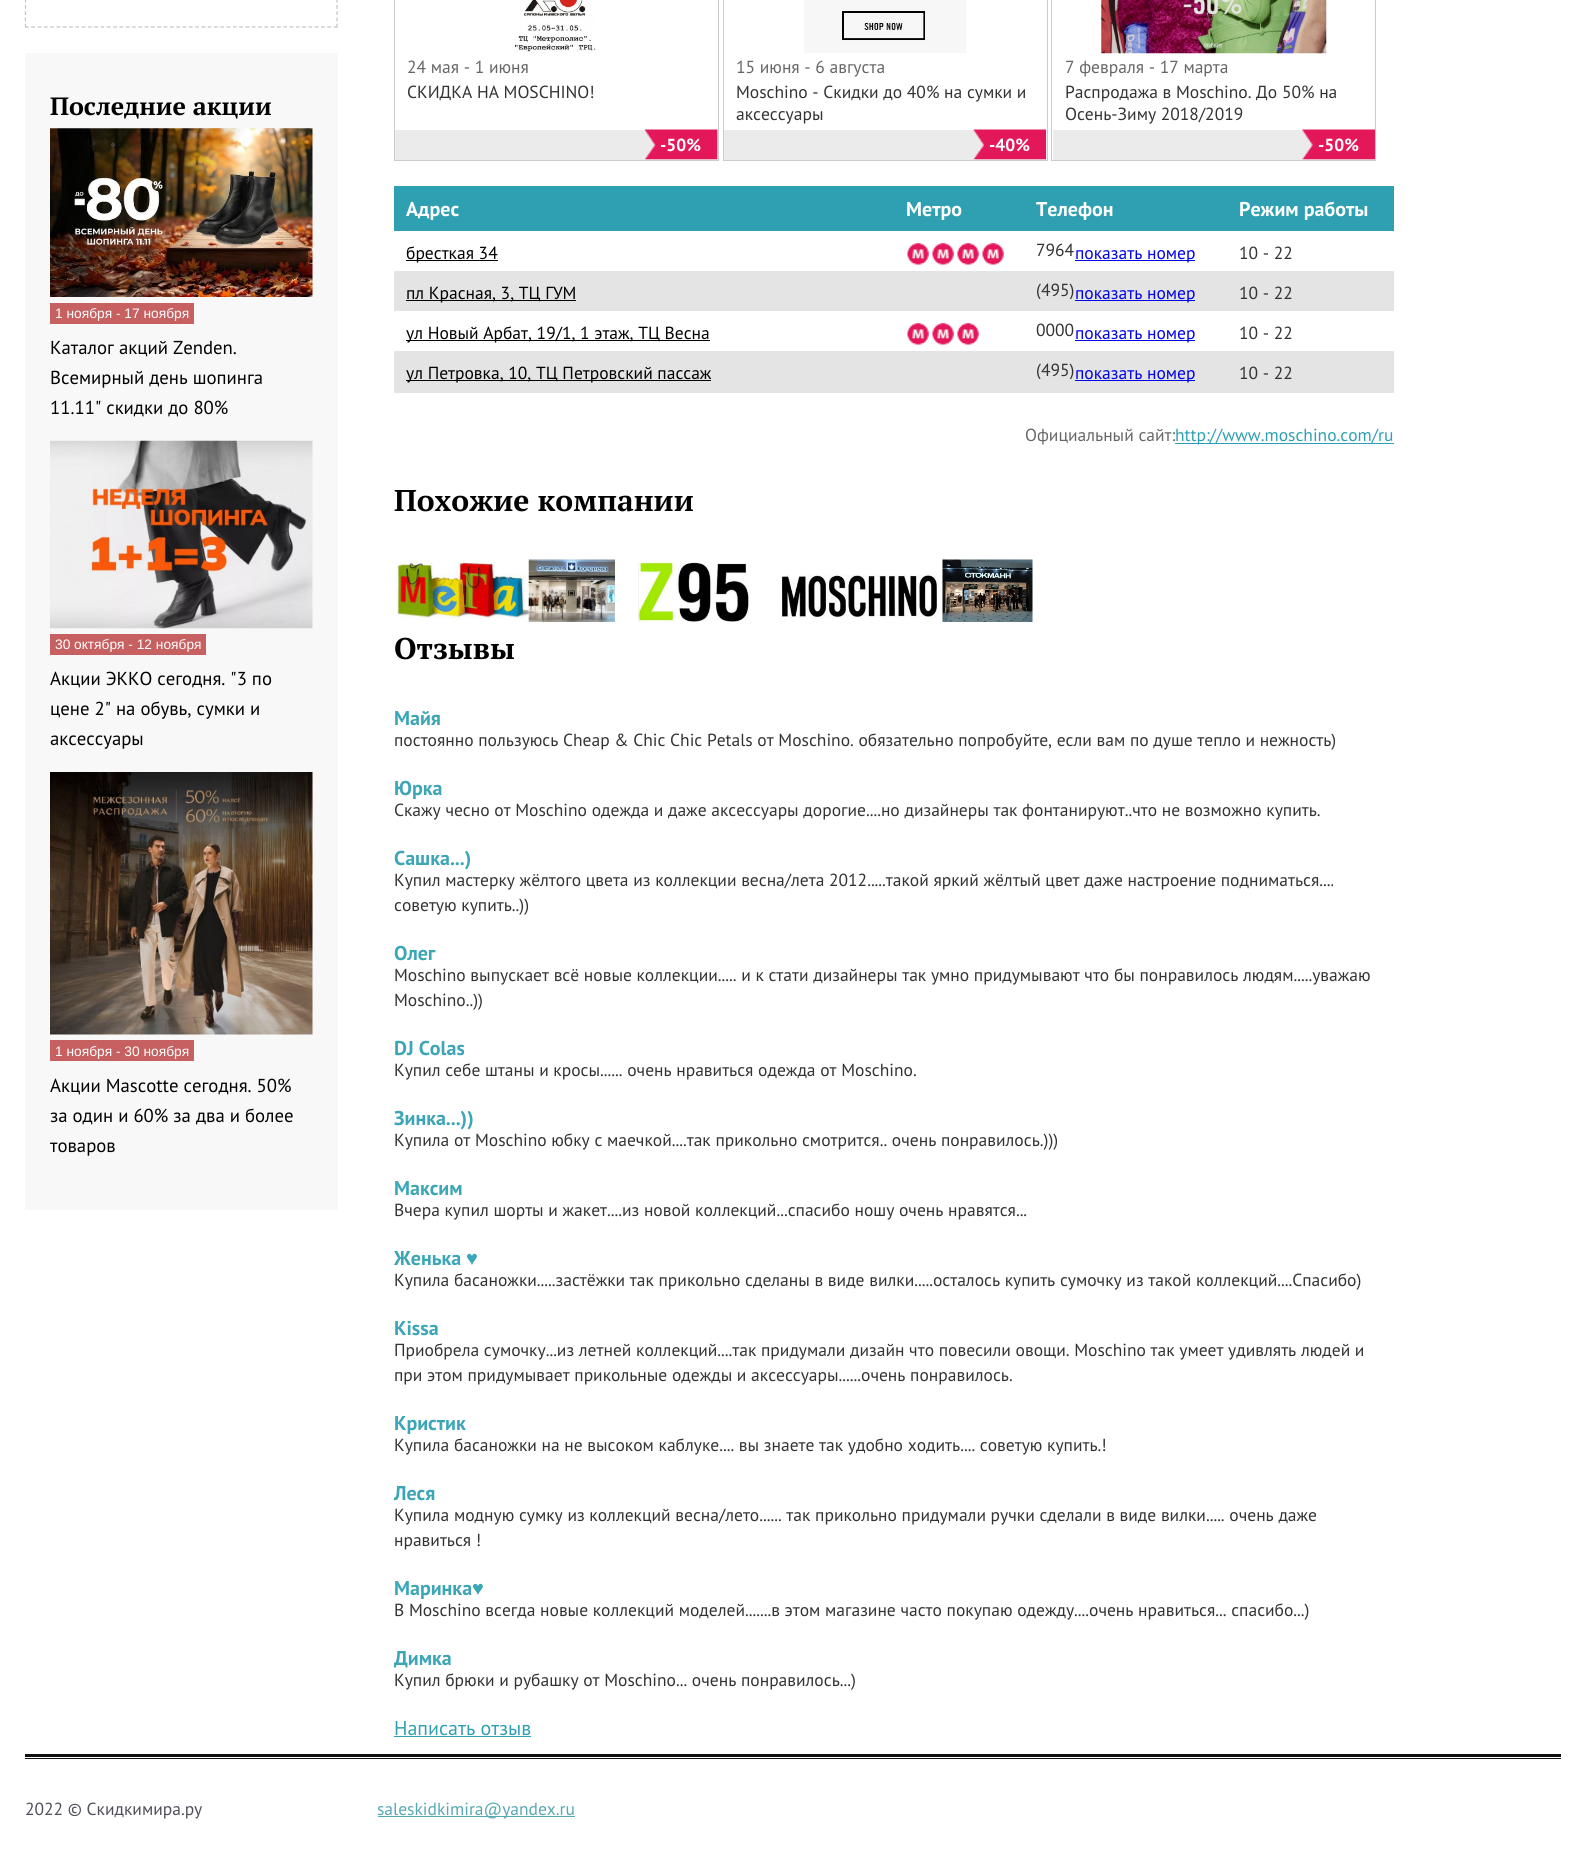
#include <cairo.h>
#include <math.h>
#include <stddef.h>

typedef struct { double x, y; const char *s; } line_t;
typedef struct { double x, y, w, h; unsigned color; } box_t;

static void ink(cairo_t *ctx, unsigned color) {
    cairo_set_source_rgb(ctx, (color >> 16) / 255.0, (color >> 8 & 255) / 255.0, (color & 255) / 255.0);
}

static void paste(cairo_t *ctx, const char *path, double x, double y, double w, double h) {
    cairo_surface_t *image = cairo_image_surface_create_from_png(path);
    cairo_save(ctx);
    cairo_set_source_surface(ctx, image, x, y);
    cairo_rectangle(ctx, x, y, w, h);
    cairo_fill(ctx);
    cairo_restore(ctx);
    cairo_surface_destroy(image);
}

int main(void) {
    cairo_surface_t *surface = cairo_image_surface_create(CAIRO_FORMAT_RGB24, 1586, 1858);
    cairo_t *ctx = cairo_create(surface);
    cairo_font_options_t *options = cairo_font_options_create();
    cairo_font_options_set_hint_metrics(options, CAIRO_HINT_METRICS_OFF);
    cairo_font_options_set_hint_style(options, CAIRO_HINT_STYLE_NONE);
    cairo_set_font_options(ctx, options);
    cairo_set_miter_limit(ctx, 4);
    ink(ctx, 0xFFFFFF);
    cairo_paint(ctx);
    cairo_new_path(ctx);
    cairo_move_to(ctx, 337, -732.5);
    cairo_line_to(ctx, 337, 27.5);
    ink(ctx, 0xC4C4C4);
    cairo_set_line_width(ctx, 1.2);
    cairo_set_dash(ctx, (double[]){3.75, 2.5}, 2, 0);
    cairo_stroke(ctx);
    cairo_new_path(ctx);
    cairo_move_to(ctx, 25, 27);
    cairo_line_to(ctx, 337.5, 27);
    cairo_set_dash(ctx, (double[]){3.75, 2.55}, 2, 0);
    cairo_stroke(ctx);
    cairo_new_path(ctx);
    cairo_move_to(ctx, 25.5, -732.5);
    cairo_line_to(ctx, 25.5, 27.5);
    cairo_set_dash(ctx, (double[]){3.75, 2.5}, 2, 0);
    cairo_stroke(ctx);
    ink(ctx, 0xF8F8F8);
    cairo_rectangle(ctx, 25, 53, 313, 1157);
    cairo_fill(ctx);
    cairo_select_font_face(ctx, "PT Serif", CAIRO_FONT_SLANT_NORMAL, CAIRO_FONT_WEIGHT_BOLD);
    cairo_set_font_size(ctx, 25);
    ink(ctx, 0x010101);
    cairo_move_to(ctx, 50, 115);
    cairo_show_text(ctx, "Последние акции");
    paste(ctx, "media/1.png", 50, 128, 263, 169);
    ink(ctx, 0xC76161);
    cairo_rectangle(ctx, 50, 303, 144, 21);
    cairo_fill(ctx);
    cairo_select_font_face(ctx, "Liberation Sans", CAIRO_FONT_SLANT_NORMAL, CAIRO_FONT_WEIGHT_NORMAL);
    cairo_set_font_size(ctx, 13.75);
    ink(ctx, 0xFFFFFF);
    cairo_move_to(ctx, 55, 318);
    cairo_show_text(ctx, "1 ноября - 17 ноября");
    cairo_select_font_face(ctx, "PT Sans", CAIRO_FONT_SLANT_NORMAL, CAIRO_FONT_WEIGHT_NORMAL);
    cairo_set_font_size(ctx, 18.75);
    ink(ctx, 0x010101);
    {
        static const line_t items[] = {
            {50, 354, "Каталог акций Zenden."},
            {50, 384, "Всемирный день шопинга"},
            {50, 414, "11.11\" скидки до 80%"},
        };
        for (size_t i = 0; i < sizeof items / sizeof *items; i++) {
            cairo_move_to(ctx, items[i].x, items[i].y);
            cairo_show_text(ctx, items[i].s);
        }
    }
    paste(ctx, "media/2.png", 50, 440, 263, 189);
    ink(ctx, 0xC76161);
    cairo_rectangle(ctx, 50, 634, 156, 21);
    cairo_fill(ctx);
    cairo_select_font_face(ctx, "Liberation Sans", CAIRO_FONT_SLANT_NORMAL, CAIRO_FONT_WEIGHT_NORMAL);
    cairo_set_font_size(ctx, 13.75);
    ink(ctx, 0xFFFFFF);
    cairo_move_to(ctx, 55, 649);
    cairo_show_text(ctx, "30 октября - 12 ноября");
    cairo_select_font_face(ctx, "PT Sans", CAIRO_FONT_SLANT_NORMAL, CAIRO_FONT_WEIGHT_NORMAL);
    cairo_set_font_size(ctx, 18.75);
    ink(ctx, 0x010101);
    {
        static const line_t items[] = {
            {50, 685, "Акции ЭККО сегодня. \"3 по"},
            {50, 715, "цене 2\" на обувь, сумки и"},
            {50, 745, "аксессуары"},
        };
        for (size_t i = 0; i < sizeof items / sizeof *items; i++) {
            cairo_move_to(ctx, items[i].x, items[i].y);
            cairo_show_text(ctx, items[i].s);
        }
    }
    paste(ctx, "media/3.png", 50, 772, 263, 263);
    ink(ctx, 0xC76161);
    cairo_rectangle(ctx, 50, 1040, 144, 21);
    cairo_fill(ctx);
    cairo_select_font_face(ctx, "Liberation Sans", CAIRO_FONT_SLANT_NORMAL, CAIRO_FONT_WEIGHT_NORMAL);
    cairo_set_font_size(ctx, 13.75);
    ink(ctx, 0xFFFFFF);
    cairo_move_to(ctx, 55, 1056);
    cairo_show_text(ctx, "1 ноября - 30 ноября");
    cairo_select_font_face(ctx, "PT Sans", CAIRO_FONT_SLANT_NORMAL, CAIRO_FONT_WEIGHT_NORMAL);
    cairo_set_font_size(ctx, 18.75);
    ink(ctx, 0x010101);
    {
        static const line_t items[] = {
            {50, 1092, "Акции Mascotte сегодня. 50%"},
            {50, 1122, "за один и 60% за два и более"},
            {50, 1152, "товаров"},
        };
        for (size_t i = 0; i < sizeof items / sizeof *items; i++) {
            cairo_move_to(ctx, items[i].x, items[i].y);
            cairo_show_text(ctx, items[i].s);
        }
    }
    cairo_rectangle(ctx, 394.5, -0.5, 324, 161);
    ink(ctx, 0xCCCCCC);
    cairo_set_line_width(ctx, 1);
    cairo_set_dash(ctx, NULL, 0, 0);
    cairo_stroke(ctx);
    paste(ctx, "media/4.png", 514, 0, 82, 52);
    cairo_set_font_size(ctx, 17.5);
    ink(ctx, 0x666666);
    cairo_move_to(ctx, 407, 73);
    cairo_show_text(ctx, "24 мая - 1 июня");
    ink(ctx, 0x333333);
    cairo_move_to(ctx, 407, 98);
    cairo_show_text(ctx, "СКИДКА НА MOSCHINO!");
    ink(ctx, 0xEBEBEB);
    cairo_rectangle(ctx, 395, 130, 323, 30);
    cairo_fill(ctx);
    paste(ctx, "media/5.png", 645, 129, 73, 31);
    cairo_select_font_face(ctx, "PT Sans", CAIRO_FONT_SLANT_NORMAL, CAIRO_FONT_WEIGHT_BOLD);
    ink(ctx, 0xFFFFFF);
    cairo_move_to(ctx, 660, 151);
    cairo_show_text(ctx, "-50%");
    cairo_rectangle(ctx, 723.5, -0.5, 324, 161);
    ink(ctx, 0xCCCCCC);
    cairo_stroke(ctx);
    paste(ctx, "media/6.png", 804, 0, 162, 53);
    cairo_select_font_face(ctx, "PT Sans", CAIRO_FONT_SLANT_NORMAL, CAIRO_FONT_WEIGHT_NORMAL);
    ink(ctx, 0x666666);
    cairo_move_to(ctx, 736, 73);
    cairo_show_text(ctx, "15 июня - 6 августа");
    ink(ctx, 0x333333);
    cairo_move_to(ctx, 736, 98);
    cairo_show_text(ctx, "Moschino - Скидки до 40% на сумки и");
    cairo_move_to(ctx, 736, 120);
    cairo_show_text(ctx, "аксессуары");
    ink(ctx, 0xEBEBEB);
    cairo_rectangle(ctx, 724, 130, 322, 30);
    cairo_fill(ctx);
    paste(ctx, "media/7.png", 973, 129, 74, 31);
    cairo_select_font_face(ctx, "PT Sans", CAIRO_FONT_SLANT_NORMAL, CAIRO_FONT_WEIGHT_BOLD);
    ink(ctx, 0xFFFFFF);
    cairo_move_to(ctx, 989, 151);
    cairo_show_text(ctx, "-40%");
    cairo_rectangle(ctx, 1051.5, -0.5, 324, 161);
    ink(ctx, 0xCCCCCC);
    cairo_stroke(ctx);
    paste(ctx, "media/8.png", 1101, 0, 226, 54);
    cairo_select_font_face(ctx, "PT Sans", CAIRO_FONT_SLANT_NORMAL, CAIRO_FONT_WEIGHT_NORMAL);
    ink(ctx, 0x666666);
    cairo_move_to(ctx, 1065, 73);
    cairo_show_text(ctx, "7 февраля - 17 марта");
    ink(ctx, 0x333333);
    cairo_move_to(ctx, 1065, 98);
    cairo_show_text(ctx, "Распродажа в Moschino. До 50% на");
    cairo_move_to(ctx, 1065, 120);
    cairo_show_text(ctx, "Осень-Зиму 2018/2019");
    ink(ctx, 0xEBEBEB);
    cairo_rectangle(ctx, 1053, 130, 322, 30);
    cairo_fill(ctx);
    paste(ctx, "media/9.png", 1302, 129, 73, 31);
    cairo_select_font_face(ctx, "PT Sans", CAIRO_FONT_SLANT_NORMAL, CAIRO_FONT_WEIGHT_BOLD);
    ink(ctx, 0xFFFFFF);
    cairo_move_to(ctx, 1318, 151);
    cairo_show_text(ctx, "-50%");
    ink(ctx, 0x2EA0B1);
    cairo_rectangle(ctx, 394, 186, 1000, 45);
    cairo_fill(ctx);
    cairo_set_font_size(ctx, 20);
    ink(ctx, 0xFFFFFF);
    {
        static const line_t items[] = {
            {406, 216, "Адрес"},
            {906, 216, "Метро"},
            {1036, 216, "Телефон"},
            {1239, 216, "Режим работы"},
        };
        for (size_t i = 0; i < sizeof items / sizeof *items; i++) {
            cairo_move_to(ctx, items[i].x, items[i].y);
            cairo_show_text(ctx, items[i].s);
        }
    }
    ink(ctx, 0x000000);
    cairo_rectangle(ctx, 406, 260, 92, 1);
    cairo_fill(ctx);
    cairo_select_font_face(ctx, "PT Sans", CAIRO_FONT_SLANT_NORMAL, CAIRO_FONT_WEIGHT_NORMAL);
    cairo_set_font_size(ctx, 17.5);
    ink(ctx, 0x010101);
    cairo_move_to(ctx, 406, 259);
    cairo_show_text(ctx, "бресткая 34");
    paste(ctx, "media/10.png", 907, 243, 22, 22);
    paste(ctx, "media/10.png", 932, 243, 22, 22);
    paste(ctx, "media/10.png", 957, 243, 22, 22);
    paste(ctx, "media/10.png", 982, 243, 22, 22);
    ink(ctx, 0x333333);
    cairo_move_to(ctx, 1036, 256);
    cairo_show_text(ctx, "7964");
    ink(ctx, 0x0000EE);
    cairo_rectangle(ctx, 1075, 260, 120, 1);
    cairo_fill(ctx);
    cairo_move_to(ctx, 1075, 259);
    cairo_show_text(ctx, "показать номер");
    ink(ctx, 0x333333);
    cairo_move_to(ctx, 1239, 259);
    cairo_show_text(ctx, "10 - 22");
    ink(ctx, 0xE4E4E4);
    cairo_rectangle(ctx, 394, 271, 1000, 40);
    cairo_fill(ctx);
    ink(ctx, 0x000000);
    cairo_rectangle(ctx, 406, 300, 170, 1);
    cairo_fill(ctx);
    ink(ctx, 0x010101);
    cairo_move_to(ctx, 406, 299);
    cairo_show_text(ctx, "пл Красная, 3, ТЦ ГУМ");
    cairo_save(ctx);
    cairo_rectangle(ctx, 1036, 271, 39, 28);
    cairo_clip(ctx);
    ink(ctx, 0x333333);
    cairo_move_to(ctx, 1036, 296);
    cairo_show_text(ctx, "(495)");
    cairo_restore(ctx);
    ink(ctx, 0x0000EE);
    cairo_rectangle(ctx, 1075, 300, 120, 1);
    cairo_fill(ctx);
    cairo_move_to(ctx, 1075, 299);
    cairo_show_text(ctx, "показать номер");
    ink(ctx, 0x333333);
    cairo_move_to(ctx, 1239, 299);
    cairo_show_text(ctx, "10 - 22");
    ink(ctx, 0x000000);
    cairo_rectangle(ctx, 406, 340, 304, 1);
    cairo_fill(ctx);
    ink(ctx, 0x010101);
    cairo_move_to(ctx, 406, 339);
    cairo_show_text(ctx, "ул Новый Арбат, 19/1, 1 этаж, ТЦ Весна");
    paste(ctx, "media/10.png", 907, 323, 22, 22);
    paste(ctx, "media/10.png", 932, 323, 22, 22);
    paste(ctx, "media/10.png", 957, 323, 22, 22);
    ink(ctx, 0x333333);
    cairo_move_to(ctx, 1036, 336);
    cairo_show_text(ctx, "0000");
    ink(ctx, 0x0000EE);
    cairo_rectangle(ctx, 1075, 340, 120, 1);
    cairo_fill(ctx);
    cairo_move_to(ctx, 1075, 339);
    cairo_show_text(ctx, "показать номер");
    ink(ctx, 0x333333);
    cairo_move_to(ctx, 1239, 339);
    cairo_show_text(ctx, "10 - 22");
    ink(ctx, 0xE4E4E4);
    cairo_rectangle(ctx, 394, 351, 1000, 42);
    cairo_fill(ctx);
    ink(ctx, 0x000000);
    cairo_rectangle(ctx, 406, 380, 305, 1);
    cairo_fill(ctx);
    ink(ctx, 0x010101);
    cairo_move_to(ctx, 406, 379);
    cairo_show_text(ctx, "ул Петровка, 10, ТЦ Петровский пассаж");
    cairo_save(ctx);
    cairo_rectangle(ctx, 1036, 351, 39, 28);
    cairo_clip(ctx);
    ink(ctx, 0x333333);
    cairo_move_to(ctx, 1036, 376);
    cairo_show_text(ctx, "(495)");
    cairo_restore(ctx);
    ink(ctx, 0x0000EE);
    cairo_rectangle(ctx, 1075, 380, 120, 1);
    cairo_fill(ctx);
    cairo_move_to(ctx, 1075, 379);
    cairo_show_text(ctx, "показать номер");
    ink(ctx, 0x333333);
    cairo_move_to(ctx, 1239, 379);
    cairo_show_text(ctx, "10 - 22");
    ink(ctx, 0x666666);
    cairo_move_to(ctx, 1025, 441);
    cairo_show_text(ctx, "Официальный сайт:");
    ink(ctx, 0x2EA0B1);
    cairo_rectangle(ctx, 1175, 443, 219, 1);
    cairo_fill(ctx);
    cairo_move_to(ctx, 1175, 441);
    cairo_show_text(ctx, "http://www.moschino.com/ru");
    cairo_select_font_face(ctx, "PT Serif", CAIRO_FONT_SLANT_NORMAL, CAIRO_FONT_WEIGHT_BOLD);
    cairo_set_font_size(ctx, 30);
    ink(ctx, 0x010101);
    cairo_move_to(ctx, 394, 511);
    cairo_show_text(ctx, "Похожие компании");
    paste(ctx, "media/11.png", 396, 560, 133, 59);
    paste(ctx, "media/12.png", 528, 559, 87, 63);
    paste(ctx, "media/13.png", 638, 561, 111, 61);
    paste(ctx, "media/14.png", 781, 574, 158, 45);
    paste(ctx, "media/15.png", 942, 559, 91, 63);
    cairo_move_to(ctx, 394, 659);
    cairo_show_text(ctx, "Отзывы");
    cairo_select_font_face(ctx, "PT Sans", CAIRO_FONT_SLANT_NORMAL, CAIRO_FONT_WEIGHT_BOLD);
    cairo_set_font_size(ctx, 20);
    ink(ctx, 0x3CA6B6);
    cairo_move_to(ctx, 394, 725);
    cairo_show_text(ctx, "Майя");
    cairo_select_font_face(ctx, "PT Sans", CAIRO_FONT_SLANT_NORMAL, CAIRO_FONT_WEIGHT_NORMAL);
    cairo_set_font_size(ctx, 17.5);
    ink(ctx, 0x333333);
    cairo_move_to(ctx, 394, 746);
    cairo_show_text(ctx, "постоянно пользуюсь Cheap & Chic Chic Petals от Moschino. обязательно попробуйте, если вам по душе тепло и нежность)");
    cairo_select_font_face(ctx, "PT Sans", CAIRO_FONT_SLANT_NORMAL, CAIRO_FONT_WEIGHT_BOLD);
    cairo_set_font_size(ctx, 20);
    ink(ctx, 0x3CA6B6);
    cairo_move_to(ctx, 394, 795);
    cairo_show_text(ctx, "Юрка");
    cairo_select_font_face(ctx, "PT Sans", CAIRO_FONT_SLANT_NORMAL, CAIRO_FONT_WEIGHT_NORMAL);
    cairo_set_font_size(ctx, 17.5);
    ink(ctx, 0x333333);
    cairo_move_to(ctx, 394, 816);
    cairo_show_text(ctx, "Скажу чесно от Moschino одежда и даже аксессуары дорогие....но дизайнеры так фонтанируют..что не возможно купить.");
    cairo_select_font_face(ctx, "PT Sans", CAIRO_FONT_SLANT_NORMAL, CAIRO_FONT_WEIGHT_BOLD);
    cairo_set_font_size(ctx, 20);
    ink(ctx, 0x3CA6B6);
    cairo_move_to(ctx, 394, 865);
    cairo_show_text(ctx, "Сашка...)");
    cairo_select_font_face(ctx, "PT Sans", CAIRO_FONT_SLANT_NORMAL, CAIRO_FONT_WEIGHT_NORMAL);
    cairo_set_font_size(ctx, 17.5);
    ink(ctx, 0x333333);
    cairo_move_to(ctx, 394, 886);
    cairo_show_text(ctx, "Купил мастерку жёлтого цвета из коллекции весна/лета 2012.....такой яркий жёлтый цвет даже настроение подниматься....");
    cairo_move_to(ctx, 394, 911);
    cairo_show_text(ctx, "советую купить..))");
    cairo_select_font_face(ctx, "PT Sans", CAIRO_FONT_SLANT_NORMAL, CAIRO_FONT_WEIGHT_BOLD);
    cairo_set_font_size(ctx, 20);
    ink(ctx, 0x3CA6B6);
    cairo_move_to(ctx, 394, 960);
    cairo_show_text(ctx, "Олег");
    cairo_select_font_face(ctx, "PT Sans", CAIRO_FONT_SLANT_NORMAL, CAIRO_FONT_WEIGHT_NORMAL);
    cairo_set_font_size(ctx, 17.5);
    ink(ctx, 0x333333);
    cairo_move_to(ctx, 394, 981);
    cairo_show_text(ctx, "Moschino выпускает всё новые коллекции..... и к стати дизайнеры так умно придумывают что бы понравилось людям.....уважаю");
    cairo_move_to(ctx, 394, 1006);
    cairo_show_text(ctx, "Moschino..))");
    cairo_select_font_face(ctx, "PT Sans", CAIRO_FONT_SLANT_NORMAL, CAIRO_FONT_WEIGHT_BOLD);
    cairo_set_font_size(ctx, 20);
    ink(ctx, 0x3CA6B6);
    cairo_move_to(ctx, 394, 1055);
    cairo_show_text(ctx, "DJ Colas");
    cairo_select_font_face(ctx, "PT Sans", CAIRO_FONT_SLANT_NORMAL, CAIRO_FONT_WEIGHT_NORMAL);
    cairo_set_font_size(ctx, 17.5);
    ink(ctx, 0x333333);
    cairo_move_to(ctx, 394, 1076);
    cairo_show_text(ctx, "Купил себе штаны и кросы...... очень нравиться одежда от Moschino.");
    cairo_select_font_face(ctx, "PT Sans", CAIRO_FONT_SLANT_NORMAL, CAIRO_FONT_WEIGHT_BOLD);
    cairo_set_font_size(ctx, 20);
    ink(ctx, 0x3CA6B6);
    cairo_move_to(ctx, 394, 1125);
    cairo_show_text(ctx, "Зинка...))");
    cairo_select_font_face(ctx, "PT Sans", CAIRO_FONT_SLANT_NORMAL, CAIRO_FONT_WEIGHT_NORMAL);
    cairo_set_font_size(ctx, 17.5);
    ink(ctx, 0x333333);
    cairo_move_to(ctx, 394, 1146);
    cairo_show_text(ctx, "Купила от Moschino юбку с маечкой....так прикольно смотрится.. очень понравилось.)))");
    cairo_select_font_face(ctx, "PT Sans", CAIRO_FONT_SLANT_NORMAL, CAIRO_FONT_WEIGHT_BOLD);
    cairo_set_font_size(ctx, 20);
    ink(ctx, 0x3CA6B6);
    cairo_move_to(ctx, 394, 1195);
    cairo_show_text(ctx, "Максим");
    cairo_select_font_face(ctx, "PT Sans", CAIRO_FONT_SLANT_NORMAL, CAIRO_FONT_WEIGHT_NORMAL);
    cairo_set_font_size(ctx, 17.5);
    ink(ctx, 0x333333);
    cairo_move_to(ctx, 394, 1216);
    cairo_show_text(ctx, "Вчера купил шорты и жакет....из новой коллекций...спасибо ношу очень нравятся...");
    cairo_select_font_face(ctx, "PT Sans", CAIRO_FONT_SLANT_NORMAL, CAIRO_FONT_WEIGHT_BOLD);
    cairo_set_font_size(ctx, 20);
    ink(ctx, 0x3CA6B6);
    cairo_move_to(ctx, 394, 1265);
    cairo_show_text(ctx, "Женька");
    cairo_select_font_face(ctx, "Liberation Serif", CAIRO_FONT_SLANT_NORMAL, CAIRO_FONT_WEIGHT_BOLD);
    cairo_move_to(ctx, 466, 1265);
    cairo_show_text(ctx, "♥");
    cairo_select_font_face(ctx, "PT Sans", CAIRO_FONT_SLANT_NORMAL, CAIRO_FONT_WEIGHT_NORMAL);
    cairo_set_font_size(ctx, 17.5);
    ink(ctx, 0x333333);
    cairo_move_to(ctx, 394, 1286);
    cairo_show_text(ctx, "Купила басаножки.....застёжки так прикольно сделаны в виде вилки.....осталось купить сумочку из такой коллекций....Спасибо)");
    cairo_select_font_face(ctx, "PT Sans", CAIRO_FONT_SLANT_NORMAL, CAIRO_FONT_WEIGHT_BOLD);
    cairo_set_font_size(ctx, 20);
    ink(ctx, 0x3CA6B6);
    cairo_move_to(ctx, 394, 1335);
    cairo_show_text(ctx, "Kissa");
    cairo_select_font_face(ctx, "PT Sans", CAIRO_FONT_SLANT_NORMAL, CAIRO_FONT_WEIGHT_NORMAL);
    cairo_set_font_size(ctx, 17.5);
    ink(ctx, 0x333333);
    cairo_move_to(ctx, 394, 1356);
    cairo_show_text(ctx, "Приобрела сумочку...из летней коллекций....так придумали дизайн что повесили овощи. Moschino так умеет удивлять людей и");
    cairo_move_to(ctx, 394, 1381);
    cairo_show_text(ctx, "при этом придумывает прикольные одежды и аксессуары......очень понравилось.");
    cairo_select_font_face(ctx, "PT Sans", CAIRO_FONT_SLANT_NORMAL, CAIRO_FONT_WEIGHT_BOLD);
    cairo_set_font_size(ctx, 20);
    ink(ctx, 0x3CA6B6);
    cairo_move_to(ctx, 394, 1430);
    cairo_show_text(ctx, "Кристик");
    cairo_select_font_face(ctx, "PT Sans", CAIRO_FONT_SLANT_NORMAL, CAIRO_FONT_WEIGHT_NORMAL);
    cairo_set_font_size(ctx, 17.5);
    ink(ctx, 0x333333);
    cairo_move_to(ctx, 394, 1451);
    cairo_show_text(ctx, "Купила басаножки на не высоком каблуке.... вы знаете так удобно ходить.... советую купить.!");
    cairo_select_font_face(ctx, "PT Sans", CAIRO_FONT_SLANT_NORMAL, CAIRO_FONT_WEIGHT_BOLD);
    cairo_set_font_size(ctx, 20);
    ink(ctx, 0x3CA6B6);
    cairo_move_to(ctx, 394, 1500);
    cairo_show_text(ctx, "Леся");
    cairo_select_font_face(ctx, "PT Sans", CAIRO_FONT_SLANT_NORMAL, CAIRO_FONT_WEIGHT_NORMAL);
    cairo_set_font_size(ctx, 17.5);
    ink(ctx, 0x333333);
    cairo_move_to(ctx, 394, 1521);
    cairo_show_text(ctx, "Купила модную сумку из коллекций весна/лето...... так прикольно придумали ручки сделали в виде вилки..... очень даже");
    cairo_move_to(ctx, 394, 1546);
    cairo_show_text(ctx, "нравиться !");
    cairo_select_font_face(ctx, "PT Sans", CAIRO_FONT_SLANT_NORMAL, CAIRO_FONT_WEIGHT_BOLD);
    cairo_set_font_size(ctx, 20);
    ink(ctx, 0x3CA6B6);
    cairo_move_to(ctx, 394, 1595);
    cairo_show_text(ctx, "Маринка");
    cairo_select_font_face(ctx, "Liberation Serif", CAIRO_FONT_SLANT_NORMAL, CAIRO_FONT_WEIGHT_BOLD);
    cairo_move_to(ctx, 472, 1595);
    cairo_show_text(ctx, "♥");
    cairo_select_font_face(ctx, "PT Sans", CAIRO_FONT_SLANT_NORMAL, CAIRO_FONT_WEIGHT_NORMAL);
    cairo_set_font_size(ctx, 17.5);
    ink(ctx, 0x333333);
    cairo_move_to(ctx, 394, 1616);
    cairo_show_text(ctx, "В Moschino всегда новые коллекций моделей.......в этом магазине часто покупаю одежду....очень нравиться... спасибо...)");
    cairo_select_font_face(ctx, "PT Sans", CAIRO_FONT_SLANT_NORMAL, CAIRO_FONT_WEIGHT_BOLD);
    cairo_set_font_size(ctx, 20);
    ink(ctx, 0x3CA6B6);
    cairo_move_to(ctx, 394, 1665);
    cairo_show_text(ctx, "Димка");
    cairo_select_font_face(ctx, "PT Sans", CAIRO_FONT_SLANT_NORMAL, CAIRO_FONT_WEIGHT_NORMAL);
    cairo_set_font_size(ctx, 17.5);
    ink(ctx, 0x333333);
    cairo_move_to(ctx, 394, 1686);
    cairo_show_text(ctx, "Купил брюки и рубашку от Moschino... очень понравилось...)");
    cairo_set_font_size(ctx, 20);
    ink(ctx, 0x2EA0B1);
    cairo_move_to(ctx, 394, 1735);
    cairo_show_text(ctx, "Написать отзыв");
    {
        static const box_t items[] = {
            {394, 1736, 137, 1, 0x2EA0B1},
            {25, 1758, 1536, 1, 0x101010},
            {25, 1754, 1536, 3, 0x101010},
        };
        for (size_t i = 0; i < sizeof items / sizeof *items; i++) {
            ink(ctx, items[i].color);
            cairo_rectangle(ctx, items[i].x, items[i].y, items[i].w, items[i].h);
            cairo_fill(ctx);
        }
    }
    cairo_set_font_size(ctx, 17.5);
    ink(ctx, 0x524F5B);
    cairo_move_to(ctx, 25, 1815);
    cairo_show_text(ctx, "2022 © Скидкимира.ру");
    ink(ctx, 0x57A7B3);
    cairo_rectangle(ctx, 378, 1816, 197, 1);
    cairo_fill(ctx);
    cairo_move_to(ctx, 377, 1815);
    cairo_show_text(ctx, "saleskidkimira@yandex.ru");
    cairo_surface_write_to_png(surface, "image.png");
    cairo_font_options_destroy(options);
    cairo_destroy(ctx);
    cairo_surface_destroy(surface);
    return 0;
}
